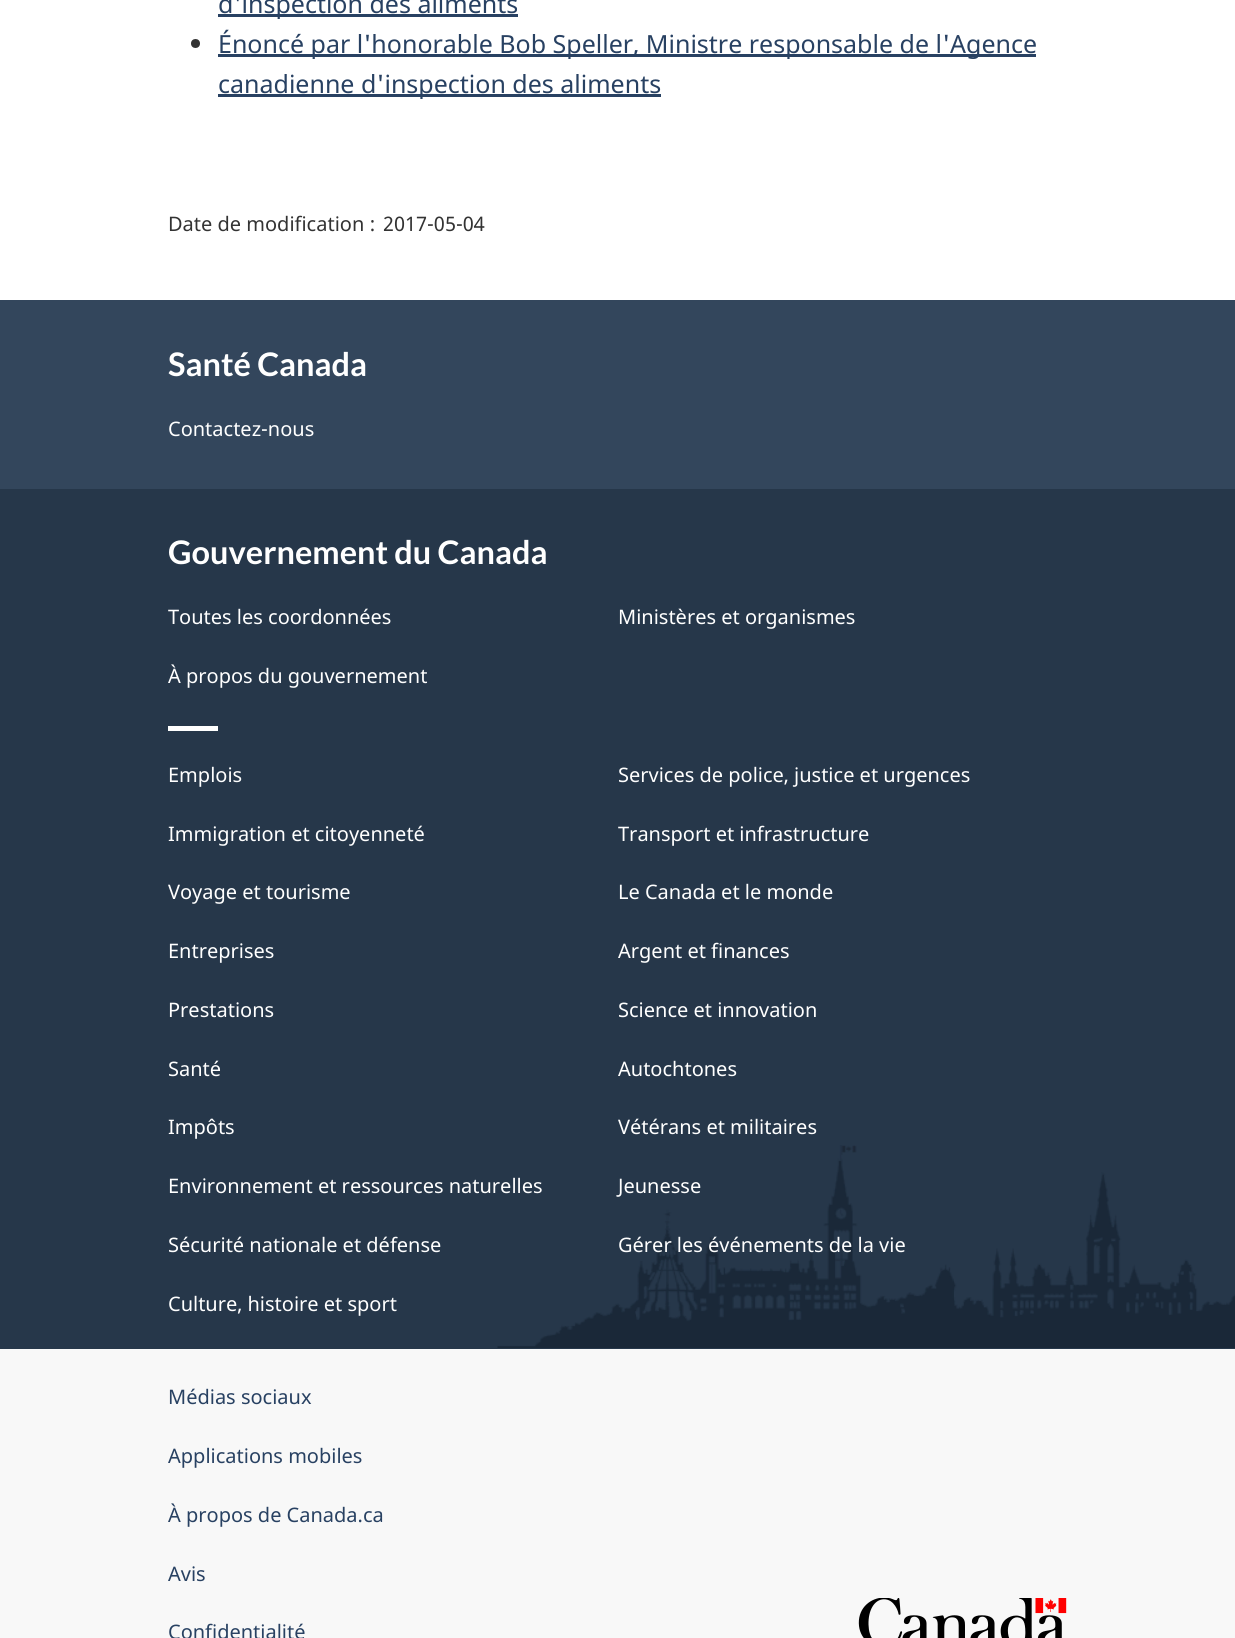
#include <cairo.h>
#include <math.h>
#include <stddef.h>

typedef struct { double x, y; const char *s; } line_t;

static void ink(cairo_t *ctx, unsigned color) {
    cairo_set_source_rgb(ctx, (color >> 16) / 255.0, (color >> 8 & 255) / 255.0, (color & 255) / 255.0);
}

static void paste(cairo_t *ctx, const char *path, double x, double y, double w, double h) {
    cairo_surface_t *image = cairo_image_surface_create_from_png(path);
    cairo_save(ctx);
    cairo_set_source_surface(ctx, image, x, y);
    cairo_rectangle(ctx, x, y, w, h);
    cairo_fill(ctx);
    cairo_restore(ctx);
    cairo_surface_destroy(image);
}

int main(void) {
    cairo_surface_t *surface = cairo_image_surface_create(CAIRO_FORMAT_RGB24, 1235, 1638);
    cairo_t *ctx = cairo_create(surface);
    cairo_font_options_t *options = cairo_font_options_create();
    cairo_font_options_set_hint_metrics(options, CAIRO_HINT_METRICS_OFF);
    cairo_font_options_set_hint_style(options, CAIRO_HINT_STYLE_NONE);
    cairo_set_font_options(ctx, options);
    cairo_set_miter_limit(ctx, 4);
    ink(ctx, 0xFFFFFF);
    cairo_paint(ctx);
    ink(ctx, 0x284162);
    cairo_rectangle(ctx, 218, 14, 300, 3);
    cairo_fill(ctx);
    cairo_select_font_face(ctx, "Noto Sans", CAIRO_FONT_SLANT_NORMAL, CAIRO_FONT_WEIGHT_NORMAL);
    cairo_set_font_size(ctx, 25);
    cairo_move_to(ctx, 218, 13);
    cairo_show_text(ctx, "d'inspection des aliments");
    ink(ctx, 0x333333);
    cairo_new_path(ctx);
    cairo_arc(ctx, 195.5, 43.5, 4.5, 0, 2 * M_PI);
    cairo_fill(ctx);
    ink(ctx, 0x284162);
    cairo_rectangle(ctx, 218, 54, 818, 3);
    cairo_fill(ctx);
    cairo_move_to(ctx, 218, 53);
    cairo_show_text(ctx, "Énoncé par l'honorable Bob Speller, Ministre responsable de l'Agence");
    cairo_rectangle(ctx, 218, 94, 443, 3);
    cairo_fill(ctx);
    cairo_move_to(ctx, 218, 93);
    cairo_show_text(ctx, "canadienne d'inspection des aliments");
    cairo_set_font_size(ctx, 20);
    ink(ctx, 0x333333);
    cairo_move_to(ctx, 168, 231);
    cairo_show_text(ctx, "Date de modification :");
    cairo_move_to(ctx, 383, 231);
    cairo_show_text(ctx, "2017-05-04");
    ink(ctx, 0x33465C);
    cairo_rectangle(ctx, 0, 300, 1235, 189);
    cairo_fill(ctx);
    cairo_select_font_face(ctx, "Lato", CAIRO_FONT_SLANT_NORMAL, CAIRO_FONT_WEIGHT_BOLD);
    cairo_set_font_size(ctx, 32.5);
    ink(ctx, 0xFFFFFF);
    cairo_move_to(ctx, 168, 376);
    cairo_show_text(ctx, "Santé Canada");
    cairo_select_font_face(ctx, "Noto Sans", CAIRO_FONT_SLANT_NORMAL, CAIRO_FONT_WEIGHT_NORMAL);
    cairo_set_font_size(ctx, 20);
    cairo_move_to(ctx, 168, 436);
    cairo_show_text(ctx, "Contactez-nous");
    ink(ctx, 0x26374A);
    cairo_rectangle(ctx, 0, 489, 1235, 860);
    cairo_fill(ctx);
    paste(ctx, "media/1.png", 497, 1145, 738, 203);
    cairo_select_font_face(ctx, "Lato", CAIRO_FONT_SLANT_NORMAL, CAIRO_FONT_WEIGHT_BOLD);
    cairo_set_font_size(ctx, 32.5);
    ink(ctx, 0xFFFFFF);
    cairo_move_to(ctx, 168, 564);
    cairo_show_text(ctx, "Gouvernement du Canada");
    cairo_select_font_face(ctx, "Noto Sans", CAIRO_FONT_SLANT_NORMAL, CAIRO_FONT_WEIGHT_NORMAL);
    cairo_set_font_size(ctx, 20);
    {
        static const line_t items[] = {
            {168, 624, "Toutes les coordonnées"},
            {618, 624, "Ministères et organismes"},
            {168, 683, "À propos du gouvernement"},
        };
        for (size_t i = 0; i < sizeof items / sizeof *items; i++) {
            cairo_move_to(ctx, items[i].x, items[i].y);
            cairo_show_text(ctx, items[i].s);
        }
    }
    cairo_rectangle(ctx, 168, 726, 50, 5);
    cairo_fill(ctx);
    {
        static const line_t items[] = {
            {168, 782, "Emplois"},
            {618, 782, "Services de police, justice et urgences"},
            {168, 841, "Immigration et citoyenneté"},
            {618, 841, "Transport et infrastructure"},
            {168, 899, "Voyage et tourisme"},
            {618, 899, "Le Canada et le monde"},
            {168, 958, "Entreprises"},
            {618, 958, "Argent et finances"},
            {168, 1017, "Prestations"},
            {618, 1017, "Science et innovation"},
            {168, 1076, "Santé"},
            {618, 1076, "Autochtones"},
            {168, 1134, "Impôts"},
            {618, 1134, "Vétérans et militaires"},
            {168, 1193, "Environnement et ressources naturelles"},
            {618, 1193, "Jeunesse"},
            {168, 1252, "Sécurité nationale et défense"},
            {618, 1252, "Gérer les événements de la vie"},
            {168, 1311, "Culture, histoire et sport"},
        };
        for (size_t i = 0; i < sizeof items / sizeof *items; i++) {
            cairo_move_to(ctx, items[i].x, items[i].y);
            cairo_show_text(ctx, items[i].s);
        }
    }
    ink(ctx, 0xF8F8F8);
    cairo_rectangle(ctx, 0, 1349, 1235, 289);
    cairo_fill(ctx);
    ink(ctx, 0x284162);
    {
        static const line_t items[] = {
            {168, 1404, "Médias sociaux"},
            {168, 1463, "Applications mobiles"},
            {168, 1522, "À propos de Canada.ca"},
            {168, 1581, "Avis"},
            {168, 1639, "Confidentialité"},
        };
        for (size_t i = 0; i < sizeof items / sizeof *items; i++) {
            cairo_move_to(ctx, items[i].x, items[i].y);
            cairo_show_text(ctx, items[i].s);
        }
    }
    paste(ctx, "media/2.png", 858, 1598, 209, 40);
    cairo_surface_write_to_png(surface, "image.png");
    cairo_font_options_destroy(options);
    cairo_destroy(ctx);
    cairo_surface_destroy(surface);
    return 0;
}
